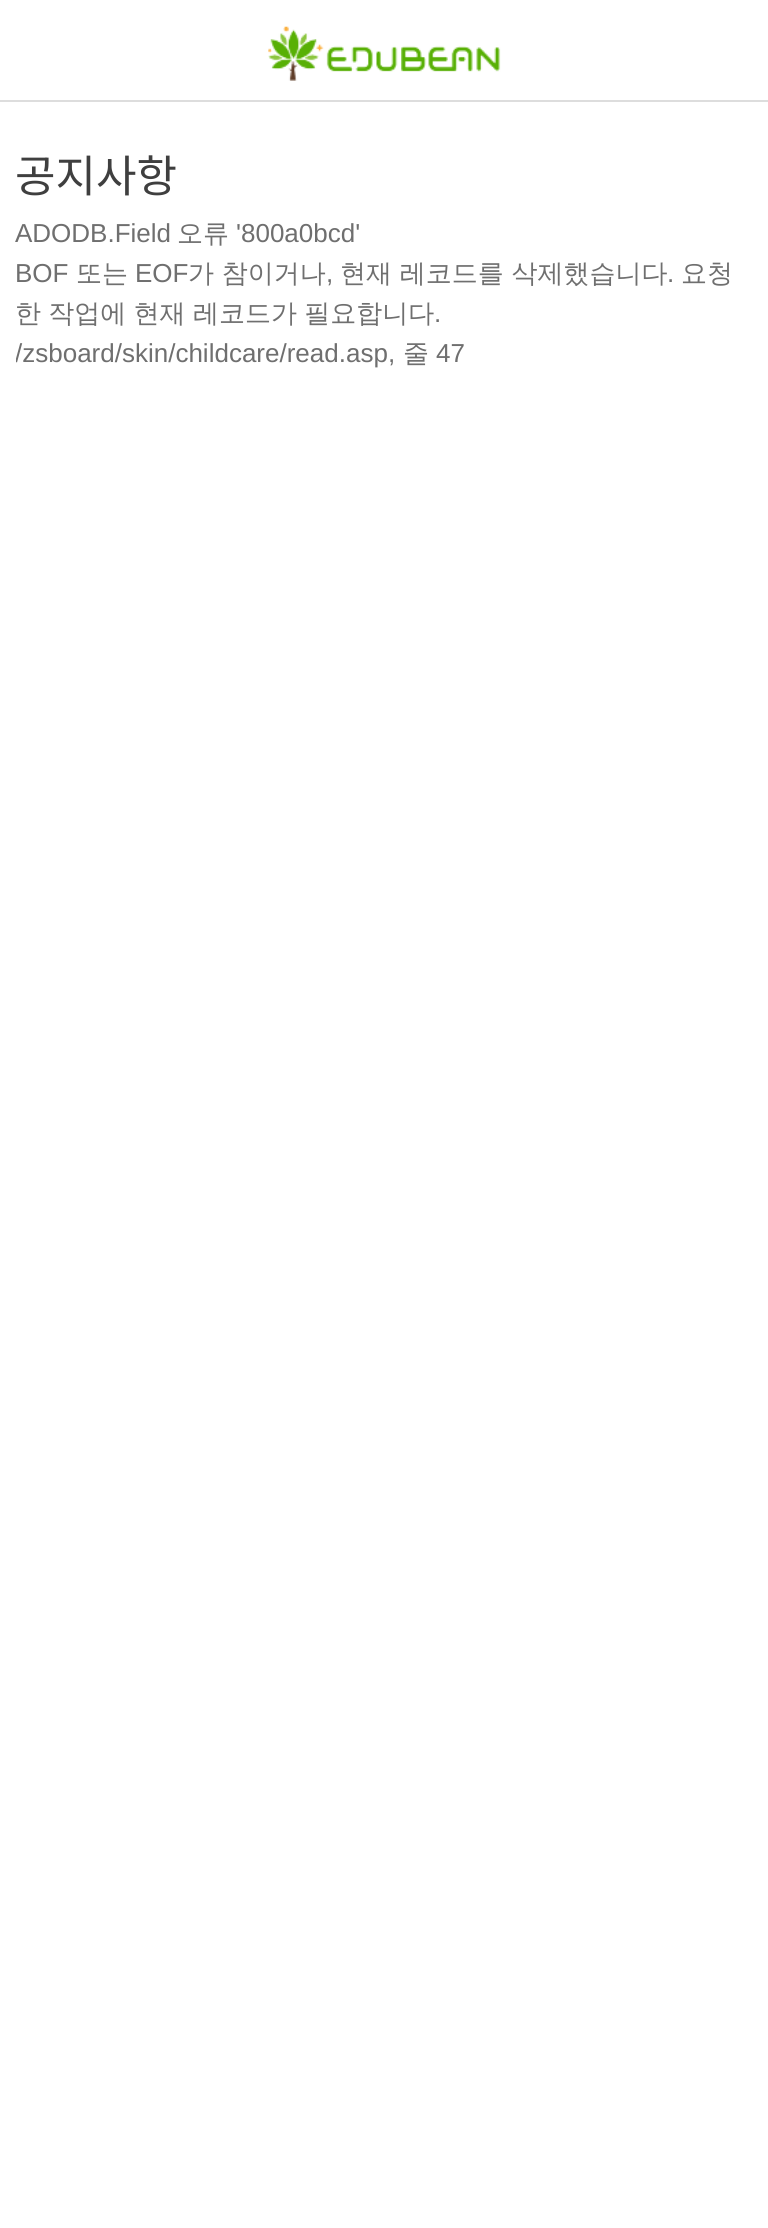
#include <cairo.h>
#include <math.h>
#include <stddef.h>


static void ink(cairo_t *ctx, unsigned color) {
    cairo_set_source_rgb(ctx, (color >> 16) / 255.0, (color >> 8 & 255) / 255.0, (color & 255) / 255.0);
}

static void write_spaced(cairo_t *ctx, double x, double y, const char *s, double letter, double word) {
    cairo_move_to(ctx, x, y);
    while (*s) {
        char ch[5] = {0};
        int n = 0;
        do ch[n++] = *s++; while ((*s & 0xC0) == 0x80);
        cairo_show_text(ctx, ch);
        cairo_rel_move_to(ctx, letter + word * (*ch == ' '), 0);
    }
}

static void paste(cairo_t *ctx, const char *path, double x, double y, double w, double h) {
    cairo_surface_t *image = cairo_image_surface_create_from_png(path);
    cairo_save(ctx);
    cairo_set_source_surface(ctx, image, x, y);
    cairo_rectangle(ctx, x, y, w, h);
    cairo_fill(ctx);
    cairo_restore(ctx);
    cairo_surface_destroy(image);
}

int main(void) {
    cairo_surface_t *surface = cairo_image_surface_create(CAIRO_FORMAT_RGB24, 768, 2228);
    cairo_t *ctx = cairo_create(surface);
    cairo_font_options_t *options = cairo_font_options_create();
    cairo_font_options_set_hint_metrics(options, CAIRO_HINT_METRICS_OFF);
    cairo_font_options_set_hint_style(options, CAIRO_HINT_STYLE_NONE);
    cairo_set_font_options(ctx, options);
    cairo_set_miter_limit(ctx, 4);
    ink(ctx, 0xFFFFFF);
    cairo_paint(ctx);
    ink(ctx, 0xDDDDDD);
    cairo_rectangle(ctx, 0, 100, 768, 2);
    cairo_fill(ctx);
    paste(ctx, "media/1.png", 268, 26, 233, 55);
    cairo_select_font_face(ctx, "Noto Sans KR", CAIRO_FONT_SLANT_NORMAL, CAIRO_FONT_WEIGHT_NORMAL);
    cairo_set_font_size(ctx, 44);
    ink(ctx, 0x3F3F3F);
    cairo_move_to(ctx, 15, 192);
    cairo_show_text(ctx, "공지사항");
    cairo_select_font_face(ctx, "Liberation Sans", CAIRO_FONT_SLANT_NORMAL, CAIRO_FONT_WEIGHT_NORMAL);
    cairo_set_font_size(ctx, 26);
    ink(ctx, 0x6F6F6F);
    cairo_move_to(ctx, 15, 242);
    cairo_show_text(ctx, "ADODB.Field");
    cairo_select_font_face(ctx, "WenQuanYi Zen Hei Medium", CAIRO_FONT_SLANT_NORMAL, CAIRO_FONT_WEIGHT_NORMAL);
    cairo_move_to(ctx, 177, 242);
    cairo_show_text(ctx, "오류");
    cairo_select_font_face(ctx, "Liberation Sans", CAIRO_FONT_SLANT_NORMAL, CAIRO_FONT_WEIGHT_NORMAL);
    cairo_move_to(ctx, 236, 242);
    cairo_show_text(ctx, "'800a0bcd'");
    cairo_move_to(ctx, 15, 282);
    cairo_show_text(ctx, "BOF");
    cairo_select_font_face(ctx, "WenQuanYi Zen Hei Medium", CAIRO_FONT_SLANT_NORMAL, CAIRO_FONT_WEIGHT_NORMAL);
    cairo_move_to(ctx, 76, 282);
    cairo_show_text(ctx, "또는");
    cairo_select_font_face(ctx, "Liberation Sans", CAIRO_FONT_SLANT_NORMAL, CAIRO_FONT_WEIGHT_NORMAL);
    cairo_move_to(ctx, 135, 282);
    cairo_show_text(ctx, "EOF");
    cairo_select_font_face(ctx, "WenQuanYi Zen Hei Medium", CAIRO_FONT_SLANT_NORMAL, CAIRO_FONT_WEIGHT_NORMAL);
    cairo_move_to(ctx, 188, 282);
    cairo_show_text(ctx, "가 참이거나");
    cairo_select_font_face(ctx, "Liberation Sans", CAIRO_FONT_SLANT_NORMAL, CAIRO_FONT_WEIGHT_NORMAL);
    cairo_move_to(ctx, 326, 282);
    cairo_show_text(ctx, ",");
    cairo_select_font_face(ctx, "WenQuanYi Zen Hei Medium", CAIRO_FONT_SLANT_NORMAL, CAIRO_FONT_WEIGHT_NORMAL);
    cairo_move_to(ctx, 340, 282);
    cairo_show_text(ctx, "현재 레코드를 삭제했습니다");
    cairo_select_font_face(ctx, "Liberation Sans", CAIRO_FONT_SLANT_NORMAL, CAIRO_FONT_WEIGHT_NORMAL);
    cairo_move_to(ctx, 667, 282);
    cairo_show_text(ctx, ".");
    cairo_select_font_face(ctx, "WenQuanYi Zen Hei Medium", CAIRO_FONT_SLANT_NORMAL, CAIRO_FONT_WEIGHT_NORMAL);
    cairo_move_to(ctx, 681, 282);
    cairo_show_text(ctx, "요청");
    write_spaced(ctx, 15, 322, "한 작업에 현재 레코드가 필요합니다", 0, -0.5);
    cairo_select_font_face(ctx, "Liberation Sans", CAIRO_FONT_SLANT_NORMAL, CAIRO_FONT_WEIGHT_NORMAL);
    cairo_move_to(ctx, 434, 322);
    cairo_show_text(ctx, ".");
    cairo_save(ctx);
    cairo_rectangle(ctx, 16, 132, 736, 240);
    cairo_clip(ctx);
    cairo_move_to(ctx, 15, 362);
    cairo_show_text(ctx, "/zsboard/skin/childcare/read.asp");
    cairo_restore(ctx);
    cairo_move_to(ctx, 388, 362);
    cairo_show_text(ctx, ",");
    cairo_select_font_face(ctx, "WenQuanYi Zen Hei Medium", CAIRO_FONT_SLANT_NORMAL, CAIRO_FONT_WEIGHT_NORMAL);
    cairo_move_to(ctx, 403, 362);
    cairo_show_text(ctx, "줄");
    cairo_select_font_face(ctx, "Liberation Sans", CAIRO_FONT_SLANT_NORMAL, CAIRO_FONT_WEIGHT_NORMAL);
    cairo_move_to(ctx, 436, 362);
    cairo_show_text(ctx, "47");
    cairo_surface_write_to_png(surface, "image.png");
    cairo_font_options_destroy(options);
    cairo_destroy(ctx);
    cairo_surface_destroy(surface);
    return 0;
}
